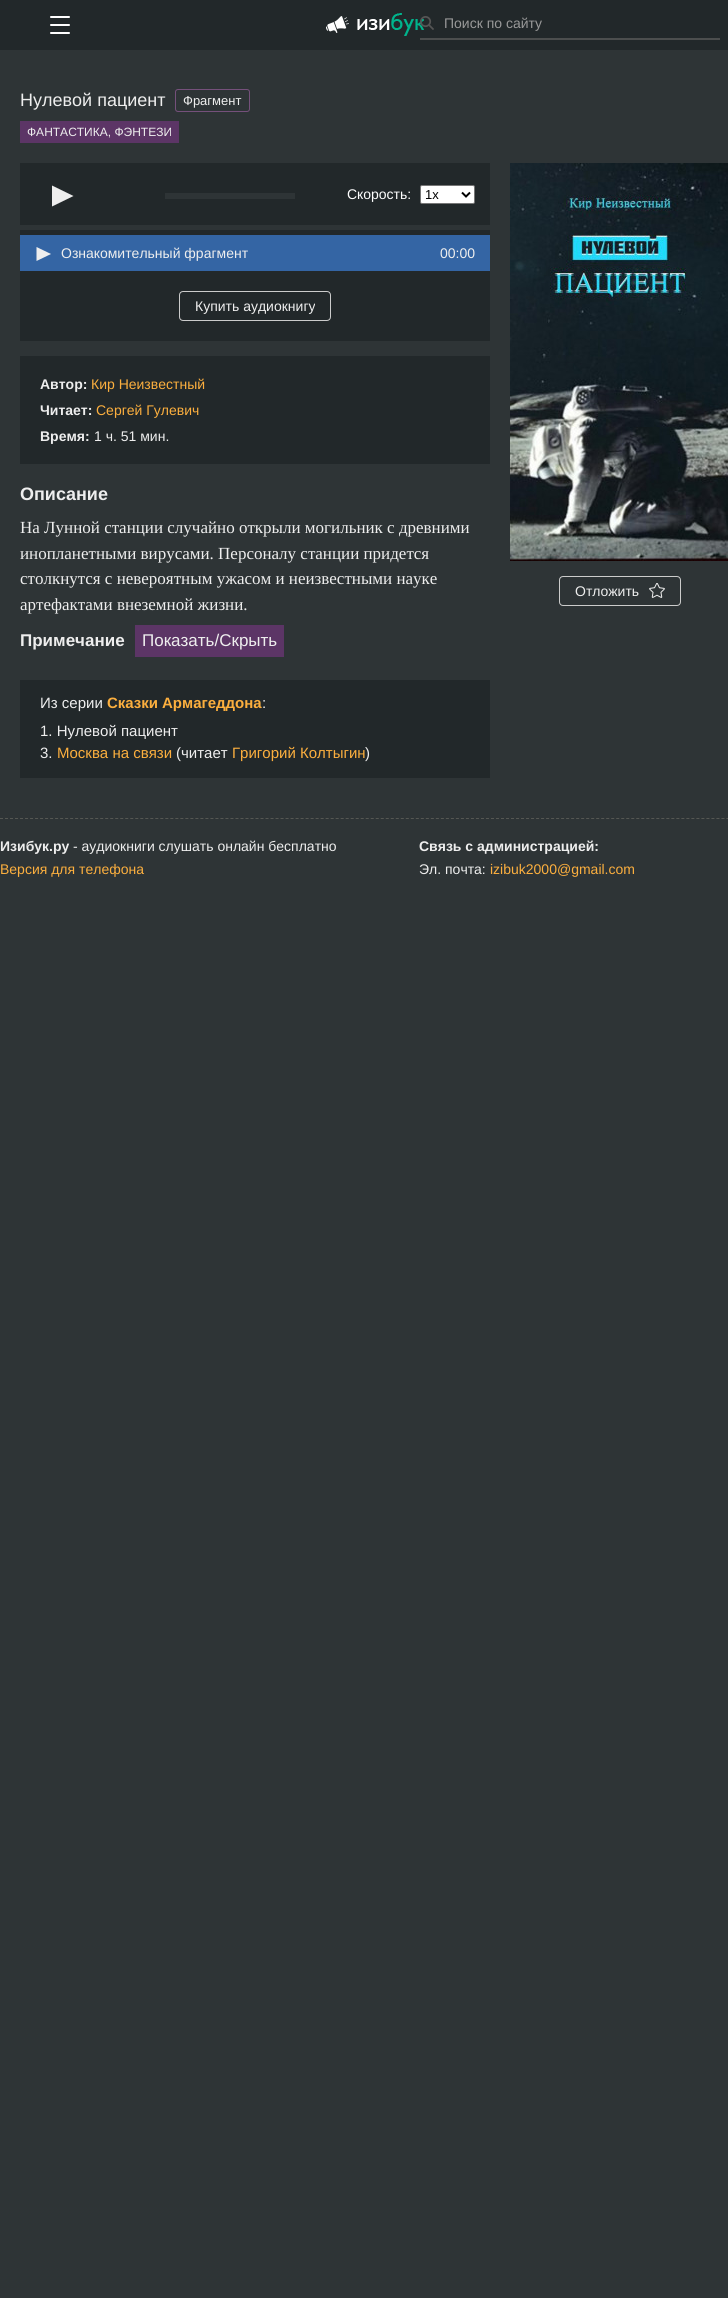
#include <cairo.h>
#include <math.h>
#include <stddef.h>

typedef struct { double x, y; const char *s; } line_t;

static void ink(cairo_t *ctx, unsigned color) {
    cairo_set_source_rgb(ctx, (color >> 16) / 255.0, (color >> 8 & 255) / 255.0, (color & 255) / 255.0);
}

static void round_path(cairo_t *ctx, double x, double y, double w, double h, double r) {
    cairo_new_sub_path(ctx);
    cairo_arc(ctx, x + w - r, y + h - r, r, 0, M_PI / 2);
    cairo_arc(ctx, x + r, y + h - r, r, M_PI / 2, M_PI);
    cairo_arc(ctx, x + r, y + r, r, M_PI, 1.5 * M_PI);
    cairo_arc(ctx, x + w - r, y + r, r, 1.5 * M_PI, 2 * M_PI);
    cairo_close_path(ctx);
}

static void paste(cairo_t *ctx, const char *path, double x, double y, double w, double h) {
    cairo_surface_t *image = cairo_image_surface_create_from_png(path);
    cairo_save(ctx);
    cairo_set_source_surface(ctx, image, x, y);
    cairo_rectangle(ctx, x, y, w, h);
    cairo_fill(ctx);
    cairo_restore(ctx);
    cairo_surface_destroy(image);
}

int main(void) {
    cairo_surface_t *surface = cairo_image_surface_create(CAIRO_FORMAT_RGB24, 728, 2298);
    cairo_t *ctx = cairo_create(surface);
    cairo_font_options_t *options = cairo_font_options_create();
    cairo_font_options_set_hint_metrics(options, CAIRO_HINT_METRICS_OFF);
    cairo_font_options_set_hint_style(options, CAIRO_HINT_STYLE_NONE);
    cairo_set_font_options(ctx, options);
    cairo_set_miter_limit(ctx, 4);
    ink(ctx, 0x2E3436);
    cairo_paint(ctx);
    ink(ctx, 0x22282A);
    cairo_rectangle(ctx, 0, 0, 728, 50);
    cairo_fill(ctx);
    ink(ctx, 0xFFFFFF);
    round_path(ctx, 50, 16, 20, 2, 1);
    cairo_fill(ctx);
    round_path(ctx, 50, 24, 20, 2, 1);
    cairo_fill(ctx);
    round_path(ctx, 50, 32, 20, 2, 1);
    cairo_fill(ctx);
    paste(ctx, "media/1.png", 326, 13, 98, 23);
    paste(ctx, "media/2.png", 420, 16, 14, 14);
    ink(ctx, 0x4C4E4E);
    cairo_rectangle(ctx, 420, 38, 300, 2);
    cairo_fill(ctx);
    cairo_select_font_face(ctx, "Liberation Sans", CAIRO_FONT_SLANT_NORMAL, CAIRO_FONT_WEIGHT_NORMAL);
    cairo_set_font_size(ctx, 14);
    ink(ctx, 0x999999);
    cairo_move_to(ctx, 444, 28);
    cairo_show_text(ctx, "Поиск по сайту");
    cairo_set_font_size(ctx, 18);
    ink(ctx, 0xEEEEEE);
    cairo_move_to(ctx, 20, 106);
    cairo_show_text(ctx, "Нулевой пациент");
    round_path(ctx, 175.5, 89.5, 74, 22, 2.5);
    ink(ctx, 0x75507B);
    cairo_set_line_width(ctx, 1);
    cairo_stroke(ctx);
    cairo_set_font_size(ctx, 13);
    ink(ctx, 0xEEEEEE);
    cairo_move_to(ctx, 183, 105);
    cairo_show_text(ctx, "Фрагмент");
    ink(ctx, 0x5C3566);
    cairo_rectangle(ctx, 20, 121, 159, 22);
    cairo_fill(ctx);
    cairo_set_font_size(ctx, 12);
    ink(ctx, 0xEEEEEE);
    cairo_move_to(ctx, 27, 136);
    cairo_show_text(ctx, "ФАНТАСТИКА, ФЭНТЕЗИ");
    ink(ctx, 0x22282A);
    cairo_rectangle(ctx, 20, 163, 470, 178);
    cairo_fill(ctx);
    ink(ctx, 0x2E3436);
    cairo_rectangle(ctx, 20, 225, 470, 5);
    cairo_fill(ctx);
    ink(ctx, 0xEEEEEE);
    cairo_new_path(ctx);
    cairo_move_to(ctx, 52, 185.5);
    cairo_line_to(ctx, 52, 206.5);
    cairo_line_to(ctx, 73.5, 196);
    cairo_close_path(ctx);
    cairo_fill(ctx);
    ink(ctx, 0x2E3436);
    cairo_rectangle(ctx, 165, 193, 130, 6);
    cairo_fill(ctx);
    cairo_set_font_size(ctx, 14);
    ink(ctx, 0xFFFFFF);
    cairo_move_to(ctx, 347, 199);
    cairo_show_text(ctx, "Скорость:");
    round_path(ctx, 420.5, 185.5, 54, 18, 1.5);
    cairo_fill_preserve(ctx);
    ink(ctx, 0x767676);
    cairo_stroke(ctx);
    cairo_new_path(ctx);
    cairo_move_to(ctx, 462, 192.5);
    cairo_line_to(ctx, 466, 196.5);
    cairo_line_to(ctx, 470, 192.5);
    ink(ctx, 0x000000);
    cairo_set_line_width(ctx, 2);
    cairo_stroke(ctx);
    cairo_set_font_size(ctx, 13);
    cairo_move_to(ctx, 425, 199);
    cairo_show_text(ctx, "1x");
    ink(ctx, 0x3465A4);
    cairo_rectangle(ctx, 20, 235, 470, 36);
    cairo_fill(ctx);
    ink(ctx, 0xEEEEEE);
    cairo_new_path(ctx);
    cairo_move_to(ctx, 36.5, 247);
    cairo_line_to(ctx, 36.5, 261);
    cairo_line_to(ctx, 51, 254);
    cairo_close_path(ctx);
    cairo_fill(ctx);
    cairo_set_font_size(ctx, 14);
    cairo_move_to(ctx, 61, 258);
    cairo_show_text(ctx, "Ознакомительный фрагмент");
    cairo_move_to(ctx, 440, 258);
    cairo_show_text(ctx, "00:00");
    round_path(ctx, 179.5, 291.5, 151, 29, 3.5);
    ink(ctx, 0xCCCCCC);
    cairo_set_line_width(ctx, 1);
    cairo_stroke(ctx);
    ink(ctx, 0xEEEEEE);
    cairo_move_to(ctx, 195, 311);
    cairo_show_text(ctx, "Купить аудиокнигу");
    ink(ctx, 0x22282A);
    cairo_rectangle(ctx, 20, 356, 470, 108);
    cairo_fill(ctx);
    cairo_select_font_face(ctx, "Liberation Sans", CAIRO_FONT_SLANT_NORMAL, CAIRO_FONT_WEIGHT_BOLD);
    ink(ctx, 0xEEEEEE);
    cairo_move_to(ctx, 40, 389);
    cairo_show_text(ctx, "Автор:");
    cairo_select_font_face(ctx, "Liberation Sans", CAIRO_FONT_SLANT_NORMAL, CAIRO_FONT_WEIGHT_NORMAL);
    ink(ctx, 0xFCAF3E);
    cairo_move_to(ctx, 91, 389);
    cairo_show_text(ctx, "Кир Неизвестный");
    cairo_select_font_face(ctx, "Liberation Sans", CAIRO_FONT_SLANT_NORMAL, CAIRO_FONT_WEIGHT_BOLD);
    ink(ctx, 0xEEEEEE);
    cairo_move_to(ctx, 40, 415);
    cairo_show_text(ctx, "Читает:");
    cairo_select_font_face(ctx, "Liberation Sans", CAIRO_FONT_SLANT_NORMAL, CAIRO_FONT_WEIGHT_NORMAL);
    ink(ctx, 0xFCAF3E);
    cairo_move_to(ctx, 96, 415);
    cairo_show_text(ctx, "Сергей Гулевич");
    cairo_select_font_face(ctx, "Liberation Sans", CAIRO_FONT_SLANT_NORMAL, CAIRO_FONT_WEIGHT_BOLD);
    ink(ctx, 0xEEEEEE);
    cairo_move_to(ctx, 40, 441);
    cairo_show_text(ctx, "Время:");
    cairo_select_font_face(ctx, "Liberation Sans", CAIRO_FONT_SLANT_NORMAL, CAIRO_FONT_WEIGHT_NORMAL);
    cairo_move_to(ctx, 94, 441);
    cairo_show_text(ctx, "1 ч. 51 мин.");
    cairo_select_font_face(ctx, "Liberation Sans", CAIRO_FONT_SLANT_NORMAL, CAIRO_FONT_WEIGHT_BOLD);
    cairo_set_font_size(ctx, 18);
    cairo_move_to(ctx, 20, 500);
    cairo_show_text(ctx, "Описание");
    cairo_select_font_face(ctx, "Liberation Serif", CAIRO_FONT_SLANT_NORMAL, CAIRO_FONT_WEIGHT_NORMAL);
    cairo_set_font_size(ctx, 17);
    {
        static const line_t items[] = {
            {20, 533, "На Лунной станции случайно открыли могильник с древними"},
            {20, 559, "инопланетными вирусами. Персоналу станции придется"},
            {20, 584, "столкнутся с невероятным ужасом и неизвестными науке"},
            {20, 610, "артефактами внеземной жизни."},
        };
        for (size_t i = 0; i < sizeof items / sizeof *items; i++) {
            cairo_move_to(ctx, items[i].x, items[i].y);
            cairo_show_text(ctx, items[i].s);
        }
    }
    cairo_select_font_face(ctx, "Liberation Sans", CAIRO_FONT_SLANT_NORMAL, CAIRO_FONT_WEIGHT_BOLD);
    cairo_move_to(ctx, 20, 646);
    cairo_show_text(ctx, "Примечание");
    ink(ctx, 0x5C3566);
    cairo_rectangle(ctx, 135, 625, 149, 32);
    cairo_fill(ctx);
    cairo_select_font_face(ctx, "Liberation Sans", CAIRO_FONT_SLANT_NORMAL, CAIRO_FONT_WEIGHT_NORMAL);
    ink(ctx, 0xEEEEEE);
    cairo_move_to(ctx, 142, 646);
    cairo_show_text(ctx, "Показать/Скрыть");
    ink(ctx, 0x22282A);
    cairo_rectangle(ctx, 20, 680, 470, 98);
    cairo_fill(ctx);
    cairo_set_font_size(ctx, 15);
    ink(ctx, 0xEEEEEE);
    cairo_move_to(ctx, 40, 708);
    cairo_show_text(ctx, "Из серии");
    cairo_select_font_face(ctx, "Liberation Sans", CAIRO_FONT_SLANT_NORMAL, CAIRO_FONT_WEIGHT_BOLD);
    ink(ctx, 0xFCAF3E);
    cairo_move_to(ctx, 107, 708);
    cairo_show_text(ctx, "Сказки Армагеддона");
    cairo_select_font_face(ctx, "Liberation Sans", CAIRO_FONT_SLANT_NORMAL, CAIRO_FONT_WEIGHT_NORMAL);
    ink(ctx, 0xEEEEEE);
    {
        static const line_t items[] = {
            {262, 708, ":"},
            {40, 736, "1. Нулевой пациент"},
            {40, 758, "3."},
        };
        for (size_t i = 0; i < sizeof items / sizeof *items; i++) {
            cairo_move_to(ctx, items[i].x, items[i].y);
            cairo_show_text(ctx, items[i].s);
        }
    }
    ink(ctx, 0xFCAF3E);
    cairo_move_to(ctx, 57, 758);
    cairo_show_text(ctx, "Москва на связи");
    ink(ctx, 0xEEEEEE);
    cairo_move_to(ctx, 176, 758);
    cairo_show_text(ctx, "(читает");
    ink(ctx, 0xFCAF3E);
    cairo_move_to(ctx, 232, 758);
    cairo_show_text(ctx, "Григорий Колтыгин");
    ink(ctx, 0xEEEEEE);
    cairo_move_to(ctx, 365, 758);
    cairo_show_text(ctx, ")");
    paste(ctx, "media/3.png", 510, 163, 218, 398);
    round_path(ctx, 559.5, 576.5, 121, 29, 3.5);
    ink(ctx, 0xCCCCCC);
    cairo_stroke(ctx);
    cairo_set_font_size(ctx, 14);
    ink(ctx, 0xEEEEEE);
    cairo_move_to(ctx, 575, 596);
    cairo_show_text(ctx, "Отложить");
    paste(ctx, "media/4.png", 649, 583, 16, 15);
    cairo_new_path(ctx);
    cairo_move_to(ctx, 0, 818.5);
    cairo_line_to(ctx, 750, 818.5);
    ink(ctx, 0x555753);
    cairo_set_dash(ctx, (double[]){3, 2.01}, 2, 0);
    cairo_stroke(ctx);
    cairo_select_font_face(ctx, "Liberation Sans", CAIRO_FONT_SLANT_NORMAL, CAIRO_FONT_WEIGHT_BOLD);
    ink(ctx, 0xEEEEEE);
    cairo_move_to(ctx, 0, 851);
    cairo_show_text(ctx, "Изибук.ру");
    cairo_select_font_face(ctx, "Liberation Sans", CAIRO_FONT_SLANT_NORMAL, CAIRO_FONT_WEIGHT_NORMAL);
    cairo_move_to(ctx, 73, 851);
    cairo_show_text(ctx, "- аудиокниги слушать онлайн бесплатно");
    ink(ctx, 0xFCAF3E);
    cairo_move_to(ctx, 0, 874);
    cairo_show_text(ctx, "Версия для телефона");
    cairo_select_font_face(ctx, "Liberation Sans", CAIRO_FONT_SLANT_NORMAL, CAIRO_FONT_WEIGHT_BOLD);
    ink(ctx, 0xEEEEEE);
    cairo_move_to(ctx, 419, 851);
    cairo_show_text(ctx, "Связь с администрацией:");
    cairo_select_font_face(ctx, "Liberation Sans", CAIRO_FONT_SLANT_NORMAL, CAIRO_FONT_WEIGHT_NORMAL);
    cairo_move_to(ctx, 419, 874);
    cairo_show_text(ctx, "Эл. почта:");
    ink(ctx, 0xFCAF3E);
    cairo_move_to(ctx, 490, 874);
    cairo_show_text(ctx, "izibuk2000@gmail.com");
    cairo_surface_write_to_png(surface, "image.png");
    cairo_font_options_destroy(options);
    cairo_destroy(ctx);
    cairo_surface_destroy(surface);
    return 0;
}
